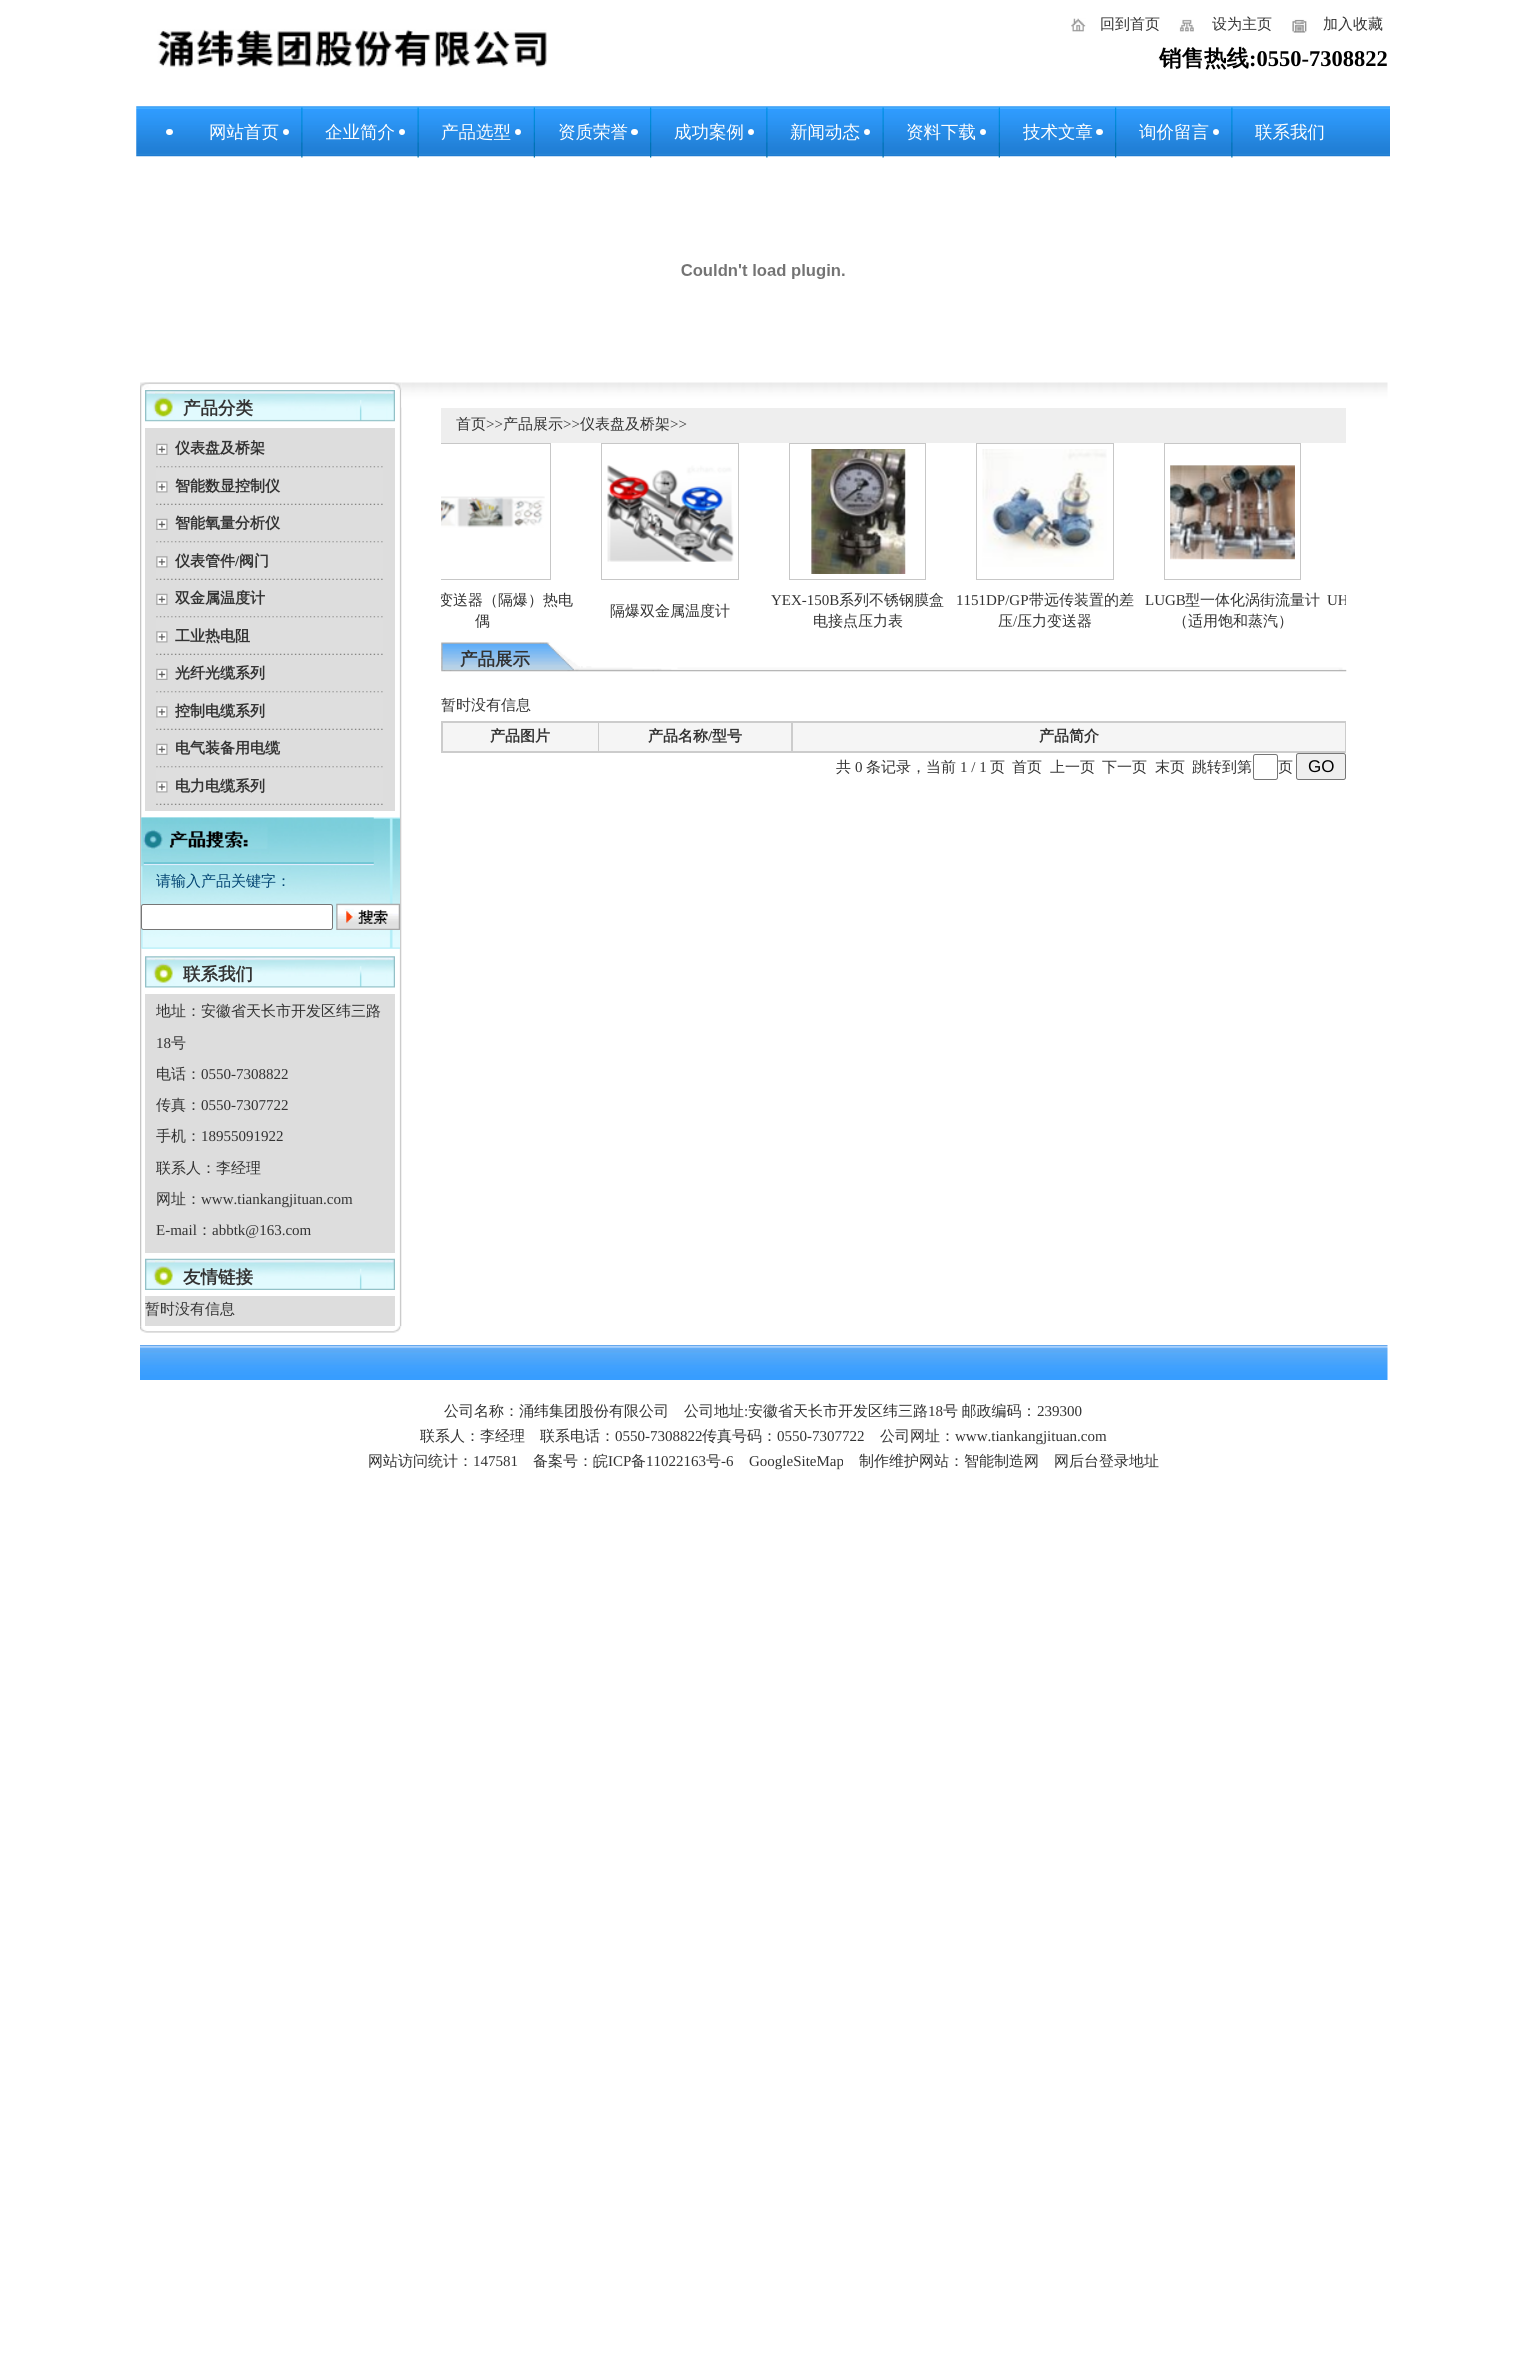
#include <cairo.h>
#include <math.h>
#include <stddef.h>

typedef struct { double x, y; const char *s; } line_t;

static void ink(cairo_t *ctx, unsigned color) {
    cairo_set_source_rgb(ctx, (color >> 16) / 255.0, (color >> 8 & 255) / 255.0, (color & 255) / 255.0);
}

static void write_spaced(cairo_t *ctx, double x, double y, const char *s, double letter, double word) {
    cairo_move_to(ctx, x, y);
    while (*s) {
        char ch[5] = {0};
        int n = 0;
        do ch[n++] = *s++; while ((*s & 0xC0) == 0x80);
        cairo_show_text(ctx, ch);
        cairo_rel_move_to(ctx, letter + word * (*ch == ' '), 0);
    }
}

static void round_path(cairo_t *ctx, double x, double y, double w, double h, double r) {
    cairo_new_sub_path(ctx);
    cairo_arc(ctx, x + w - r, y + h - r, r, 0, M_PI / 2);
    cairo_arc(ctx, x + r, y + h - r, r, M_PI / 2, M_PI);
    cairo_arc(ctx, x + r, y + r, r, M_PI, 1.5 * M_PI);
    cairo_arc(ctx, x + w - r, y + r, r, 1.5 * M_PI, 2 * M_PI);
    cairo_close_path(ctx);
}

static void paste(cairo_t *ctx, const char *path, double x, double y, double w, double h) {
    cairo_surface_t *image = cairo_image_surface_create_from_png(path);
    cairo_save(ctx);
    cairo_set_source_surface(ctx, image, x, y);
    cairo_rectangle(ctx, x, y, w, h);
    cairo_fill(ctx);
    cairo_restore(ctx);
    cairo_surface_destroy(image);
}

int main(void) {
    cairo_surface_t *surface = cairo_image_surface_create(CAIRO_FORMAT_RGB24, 1526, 2366);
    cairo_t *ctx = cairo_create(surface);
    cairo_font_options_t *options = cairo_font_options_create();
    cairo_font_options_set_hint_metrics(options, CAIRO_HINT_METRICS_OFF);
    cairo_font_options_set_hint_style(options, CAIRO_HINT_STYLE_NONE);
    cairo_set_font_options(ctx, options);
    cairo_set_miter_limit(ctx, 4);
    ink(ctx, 0xFFFFFF);
    cairo_paint(ctx);
    paste(ctx, "media/1.png", 157, 29, 390, 38);
    paste(ctx, "media/2.png", 1071, 18, 15, 14);
    cairo_select_font_face(ctx, "WenQuanYi Zen Hei Medium", CAIRO_FONT_SLANT_NORMAL, CAIRO_FONT_WEIGHT_NORMAL);
    cairo_set_font_size(ctx, 15);
    ink(ctx, 0x333333);
    cairo_move_to(ctx, 1100, 29);
    cairo_show_text(ctx, "回到首页");
    paste(ctx, "media/3.png", 1179, 19, 15, 13);
    cairo_move_to(ctx, 1212, 29);
    cairo_show_text(ctx, "设为主页");
    paste(ctx, "media/4.png", 1292, 19, 15, 14);
    cairo_move_to(ctx, 1323, 29);
    cairo_show_text(ctx, "加入收藏");
    cairo_select_font_face(ctx, "WenQuanYi Zen Hei", CAIRO_FONT_SLANT_NORMAL, CAIRO_FONT_WEIGHT_BOLD);
    cairo_set_font_size(ctx, 22.5);
    ink(ctx, 0x000000);
    cairo_move_to(ctx, 1159, 66);
    cairo_show_text(ctx, "销售热线");
    cairo_select_font_face(ctx, "Liberation Serif", CAIRO_FONT_SLANT_NORMAL, CAIRO_FONT_WEIGHT_BOLD);
    cairo_move_to(ctx, 1249, 66);
    cairo_show_text(ctx, ":0550-7308822");
    paste(ctx, "media/5.png", 136, 106, 1254, 51);
    paste(ctx, "media/6.png", 301, 107, 2, 51);
    ink(ctx, 0xFFFFFF);
    round_path(ctx, 166, 129, 7, 6, 3);
    cairo_fill(ctx);
    cairo_select_font_face(ctx, "WenQuanYi Zen Hei Medium", CAIRO_FONT_SLANT_NORMAL, CAIRO_FONT_WEIGHT_NORMAL);
    cairo_set_font_size(ctx, 17.5);
    cairo_move_to(ctx, 209, 138);
    cairo_show_text(ctx, "网站首页");
    paste(ctx, "media/7.png", 417, 107, 2, 51);
    cairo_arc(ctx, 286, 132, 3, 0, 2 * M_PI);
    cairo_fill(ctx);
    cairo_move_to(ctx, 325, 138);
    cairo_show_text(ctx, "企业简介");
    paste(ctx, "media/8.png", 533, 107, 2, 51);
    cairo_arc(ctx, 402, 132, 3, 0, 2 * M_PI);
    cairo_fill(ctx);
    cairo_move_to(ctx, 441, 138);
    cairo_show_text(ctx, "产品选型");
    paste(ctx, "media/9.png", 650, 107, 2, 51);
    cairo_arc(ctx, 518, 132, 3, 0, 2 * M_PI);
    cairo_fill(ctx);
    cairo_move_to(ctx, 558, 138);
    cairo_show_text(ctx, "资质荣誉");
    paste(ctx, "media/6.png", 766, 107, 2, 51);
    round_path(ctx, 631, 129, 7, 6, 3);
    cairo_fill(ctx);
    cairo_move_to(ctx, 674, 138);
    cairo_show_text(ctx, "成功案例");
    paste(ctx, "media/10.png", 882, 107, 2, 51);
    cairo_arc(ctx, 751, 132, 3, 0, 2 * M_PI);
    cairo_fill(ctx);
    cairo_move_to(ctx, 790, 138);
    cairo_show_text(ctx, "新闻动态");
    paste(ctx, "media/8.png", 998, 107, 2, 51);
    cairo_arc(ctx, 867, 132, 3, 0, 2 * M_PI);
    cairo_fill(ctx);
    cairo_move_to(ctx, 906, 138);
    cairo_show_text(ctx, "资料下载");
    paste(ctx, "media/9.png", 1115, 107, 2, 51);
    cairo_arc(ctx, 983, 132, 3, 0, 2 * M_PI);
    cairo_fill(ctx);
    cairo_move_to(ctx, 1023, 138);
    cairo_show_text(ctx, "技术文章");
    paste(ctx, "media/6.png", 1231, 107, 2, 51);
    round_path(ctx, 1096, 129, 7, 6, 3);
    cairo_fill(ctx);
    cairo_move_to(ctx, 1139, 138);
    cairo_show_text(ctx, "询价留言");
    cairo_new_path(ctx);
    cairo_arc(ctx, 1216, 132, 3, 0, 2 * M_PI);
    cairo_fill(ctx);
    cairo_move_to(ctx, 1255, 138);
    cairo_show_text(ctx, "联系我们");
    paste(ctx, "media/11.png", 681, 264, 164, 15);
    paste(ctx, "media/13.png", 140, 390, 262, 937);
    paste(ctx, "media/26.png", 401, 382, 987, 26);
    paste(ctx, "media/12.png", 140, 382, 262, 8);
    paste(ctx, "media/14.png", 145, 390, 250, 32);
    cairo_select_font_face(ctx, "WenQuanYi Zen Hei", CAIRO_FONT_SLANT_NORMAL, CAIRO_FONT_WEIGHT_BOLD);
    ink(ctx, 0x333333);
    cairo_move_to(ctx, 183, 414);
    cairo_show_text(ctx, "产品分类");
    ink(ctx, 0xDDDDDD);
    cairo_rectangle(ctx, 145, 428, 250, 383);
    cairo_fill(ctx);
    paste(ctx, "media/15.png", 156, 466, 227, 2);
    paste(ctx, "media/16.png", 156, 443, 12, 12);
    cairo_set_font_size(ctx, 15);
    ink(ctx, 0x333333);
    cairo_move_to(ctx, 175, 453);
    cairo_show_text(ctx, "仪表盘及桥架");
    paste(ctx, "media/17.png", 156, 467, 227, 38);
    paste(ctx, "media/18.png", 156, 481, 12, 12);
    cairo_move_to(ctx, 175, 491);
    cairo_show_text(ctx, "智能数显控制仪");
    paste(ctx, "media/15.png", 156, 541, 227, 2);
    paste(ctx, "media/16.png", 156, 518, 12, 12);
    cairo_move_to(ctx, 175, 528);
    cairo_show_text(ctx, "智能氧量分析仪");
    paste(ctx, "media/17.png", 156, 542, 227, 38);
    paste(ctx, "media/18.png", 156, 556, 12, 12);
    cairo_move_to(ctx, 175, 566);
    cairo_show_text(ctx, "仪表管件");
    cairo_select_font_face(ctx, "Liberation Serif", CAIRO_FONT_SLANT_NORMAL, CAIRO_FONT_WEIGHT_BOLD);
    cairo_move_to(ctx, 235, 566);
    cairo_show_text(ctx, "/");
    cairo_select_font_face(ctx, "WenQuanYi Zen Hei", CAIRO_FONT_SLANT_NORMAL, CAIRO_FONT_WEIGHT_BOLD);
    cairo_move_to(ctx, 239, 566);
    cairo_show_text(ctx, "阀门");
    paste(ctx, "media/15.png", 156, 616, 227, 2);
    paste(ctx, "media/16.png", 156, 593, 12, 12);
    cairo_move_to(ctx, 175, 603);
    cairo_show_text(ctx, "双金属温度计");
    paste(ctx, "media/17.png", 156, 617, 227, 38);
    paste(ctx, "media/18.png", 156, 631, 12, 12);
    cairo_move_to(ctx, 175, 641);
    cairo_show_text(ctx, "工业热电阻");
    paste(ctx, "media/15.png", 156, 691, 227, 2);
    paste(ctx, "media/16.png", 156, 668, 12, 12);
    cairo_move_to(ctx, 175, 678);
    cairo_show_text(ctx, "光纤光缆系列");
    paste(ctx, "media/17.png", 156, 692, 227, 38);
    paste(ctx, "media/18.png", 156, 706, 12, 12);
    cairo_move_to(ctx, 175, 716);
    cairo_show_text(ctx, "控制电缆系列");
    paste(ctx, "media/15.png", 156, 766, 227, 2);
    paste(ctx, "media/16.png", 156, 743, 12, 12);
    cairo_move_to(ctx, 175, 753);
    cairo_show_text(ctx, "电气装备用电缆");
    paste(ctx, "media/17.png", 156, 767, 227, 38);
    paste(ctx, "media/19.png", 156, 781, 12, 12);
    cairo_move_to(ctx, 175, 791);
    cairo_show_text(ctx, "电力电缆系列");
    paste(ctx, "media/20.png", 141, 817, 259, 132);
    paste(ctx, "media/21.png", 141, 817, 233, 50);
    cairo_select_font_face(ctx, "WenQuanYi Zen Hei Medium", CAIRO_FONT_SLANT_NORMAL, CAIRO_FONT_WEIGHT_NORMAL);
    ink(ctx, 0x024472);
    cairo_move_to(ctx, 156, 886);
    cairo_show_text(ctx, "请输入产品关键字：");
    ink(ctx, 0xFFFFFF);
    round_path(ctx, 141.5, 904.5, 191, 25, 2);
    cairo_fill_preserve(ctx);
    ink(ctx, 0x767676);
    cairo_set_line_width(ctx, 1);
    cairo_stroke(ctx);
    paste(ctx, "media/22.png", 336, 903, 64, 27);
    paste(ctx, "media/23.png", 145, 956, 250, 32);
    cairo_select_font_face(ctx, "WenQuanYi Zen Hei", CAIRO_FONT_SLANT_NORMAL, CAIRO_FONT_WEIGHT_BOLD);
    cairo_set_font_size(ctx, 17.5);
    ink(ctx, 0x333333);
    cairo_move_to(ctx, 183, 980);
    cairo_show_text(ctx, "联系我们");
    ink(ctx, 0xDDDDDD);
    cairo_rectangle(ctx, 145, 994, 250, 259);
    cairo_fill(ctx);
    cairo_select_font_face(ctx, "WenQuanYi Zen Hei Medium", CAIRO_FONT_SLANT_NORMAL, CAIRO_FONT_WEIGHT_NORMAL);
    cairo_set_font_size(ctx, 15);
    ink(ctx, 0x333333);
    cairo_move_to(ctx, 156, 1016);
    cairo_show_text(ctx, "地址：安徽省天长市开发区纬三路");
    cairo_select_font_face(ctx, "Liberation Serif", CAIRO_FONT_SLANT_NORMAL, CAIRO_FONT_WEIGHT_NORMAL);
    cairo_move_to(ctx, 156, 1048);
    cairo_show_text(ctx, "18");
    cairo_select_font_face(ctx, "WenQuanYi Zen Hei Medium", CAIRO_FONT_SLANT_NORMAL, CAIRO_FONT_WEIGHT_NORMAL);
    cairo_move_to(ctx, 171, 1048);
    cairo_show_text(ctx, "号");
    cairo_move_to(ctx, 156, 1079);
    cairo_show_text(ctx, "电话：");
    cairo_select_font_face(ctx, "Liberation Serif", CAIRO_FONT_SLANT_NORMAL, CAIRO_FONT_WEIGHT_NORMAL);
    cairo_move_to(ctx, 201, 1079);
    cairo_show_text(ctx, "0550-7308822");
    cairo_select_font_face(ctx, "WenQuanYi Zen Hei Medium", CAIRO_FONT_SLANT_NORMAL, CAIRO_FONT_WEIGHT_NORMAL);
    cairo_move_to(ctx, 156, 1110);
    cairo_show_text(ctx, "传真：");
    cairo_select_font_face(ctx, "Liberation Serif", CAIRO_FONT_SLANT_NORMAL, CAIRO_FONT_WEIGHT_NORMAL);
    cairo_move_to(ctx, 201, 1110);
    cairo_show_text(ctx, "0550-7307722");
    cairo_select_font_face(ctx, "WenQuanYi Zen Hei Medium", CAIRO_FONT_SLANT_NORMAL, CAIRO_FONT_WEIGHT_NORMAL);
    cairo_move_to(ctx, 156, 1141);
    cairo_show_text(ctx, "手机：");
    cairo_select_font_face(ctx, "Liberation Serif", CAIRO_FONT_SLANT_NORMAL, CAIRO_FONT_WEIGHT_NORMAL);
    cairo_move_to(ctx, 201, 1141);
    cairo_show_text(ctx, "18955091922");
    cairo_select_font_face(ctx, "WenQuanYi Zen Hei Medium", CAIRO_FONT_SLANT_NORMAL, CAIRO_FONT_WEIGHT_NORMAL);
    cairo_move_to(ctx, 156, 1173);
    cairo_show_text(ctx, "联系人：李经理");
    cairo_move_to(ctx, 156, 1204);
    cairo_show_text(ctx, "网址：");
    cairo_select_font_face(ctx, "Liberation Serif", CAIRO_FONT_SLANT_NORMAL, CAIRO_FONT_WEIGHT_NORMAL);
    cairo_move_to(ctx, 201, 1204);
    cairo_show_text(ctx, "www.tiankangjituan.com");
    cairo_move_to(ctx, 156, 1235);
    cairo_show_text(ctx, "E-mail");
    cairo_select_font_face(ctx, "WenQuanYi Zen Hei Medium", CAIRO_FONT_SLANT_NORMAL, CAIRO_FONT_WEIGHT_NORMAL);
    cairo_move_to(ctx, 197, 1235);
    cairo_show_text(ctx, "：");
    cairo_select_font_face(ctx, "Liberation Serif", CAIRO_FONT_SLANT_NORMAL, CAIRO_FONT_WEIGHT_NORMAL);
    cairo_move_to(ctx, 212, 1235);
    cairo_show_text(ctx, "abbtk@163.com");
    paste(ctx, "media/24.png", 145, 1258, 250, 32);
    cairo_select_font_face(ctx, "WenQuanYi Zen Hei", CAIRO_FONT_SLANT_NORMAL, CAIRO_FONT_WEIGHT_BOLD);
    cairo_set_font_size(ctx, 17.5);
    cairo_move_to(ctx, 183, 1283);
    cairo_show_text(ctx, "友情链接");
    ink(ctx, 0xDDDDDD);
    cairo_rectangle(ctx, 145, 1296, 250, 30);
    cairo_fill(ctx);
    cairo_select_font_face(ctx, "WenQuanYi Zen Hei Medium", CAIRO_FONT_SLANT_NORMAL, CAIRO_FONT_WEIGHT_NORMAL);
    cairo_set_font_size(ctx, 15);
    ink(ctx, 0x333333);
    cairo_move_to(ctx, 145, 1314);
    cairo_show_text(ctx, "暂时没有信息");
    paste(ctx, "media/25.png", 140, 1326, 261, 7);
    ink(ctx, 0xEEEEEE);
    cairo_rectangle(ctx, 441, 408, 905, 35);
    cairo_fill(ctx);
    ink(ctx, 0x333333);
    cairo_move_to(ctx, 456, 429);
    cairo_show_text(ctx, "首页");
    cairo_select_font_face(ctx, "Liberation Serif", CAIRO_FONT_SLANT_NORMAL, CAIRO_FONT_WEIGHT_NORMAL);
    cairo_move_to(ctx, 486, 429);
    cairo_show_text(ctx, ">>");
    cairo_select_font_face(ctx, "WenQuanYi Zen Hei Medium", CAIRO_FONT_SLANT_NORMAL, CAIRO_FONT_WEIGHT_NORMAL);
    cairo_move_to(ctx, 503, 429);
    cairo_show_text(ctx, "产品展示");
    cairo_select_font_face(ctx, "Liberation Serif", CAIRO_FONT_SLANT_NORMAL, CAIRO_FONT_WEIGHT_NORMAL);
    cairo_move_to(ctx, 563, 429);
    cairo_show_text(ctx, ">>");
    cairo_select_font_face(ctx, "WenQuanYi Zen Hei Medium", CAIRO_FONT_SLANT_NORMAL, CAIRO_FONT_WEIGHT_NORMAL);
    cairo_move_to(ctx, 580, 429);
    cairo_show_text(ctx, "仪表盘及桥架");
    cairo_select_font_face(ctx, "Liberation Serif", CAIRO_FONT_SLANT_NORMAL, CAIRO_FONT_WEIGHT_NORMAL);
    cairo_move_to(ctx, 670, 429);
    cairo_show_text(ctx, ">>");
    cairo_save(ctx);
    cairo_rectangle(ctx, 441, 443, 905, 200);
    cairo_clip(ctx);
    cairo_rectangle(ctx, 414.5, 443.5, 136, 136);
    ink(ctx, 0xC7C7C7);
    cairo_stroke(ctx);
    cairo_restore(ctx);
    paste(ctx, "media/27.png", 441, 496, 104, 32);
    cairo_save(ctx);
    cairo_rectangle(ctx, 441, 443, 905, 200);
    cairo_clip(ctx);
    cairo_select_font_face(ctx, "WenQuanYi Zen Hei Medium", CAIRO_FONT_SLANT_NORMAL, CAIRO_FONT_WEIGHT_NORMAL);
    cairo_move_to(ctx, 438, 605);
    cairo_show_text(ctx, "变送器（隔爆）热电");
    cairo_restore(ctx);
    cairo_select_font_face(ctx, "WenQuanYi Zen Hei Medium", CAIRO_FONT_SLANT_NORMAL, CAIRO_FONT_WEIGHT_NORMAL);
    cairo_move_to(ctx, 475, 626);
    cairo_show_text(ctx, "偶");
    cairo_rectangle(ctx, 789.5, 443.5, 136, 136);
    ink(ctx, 0xC7C7C7);
    cairo_stroke(ctx);
    paste(ctx, "media/28.png", 811, 449, 95, 125);
    cairo_select_font_face(ctx, "Liberation Serif", CAIRO_FONT_SLANT_NORMAL, CAIRO_FONT_WEIGHT_NORMAL);
    ink(ctx, 0x333333);
    cairo_move_to(ctx, 771, 605);
    cairo_show_text(ctx, "YEX-150B");
    cairo_select_font_face(ctx, "WenQuanYi Zen Hei Medium", CAIRO_FONT_SLANT_NORMAL, CAIRO_FONT_WEIGHT_NORMAL);
    cairo_move_to(ctx, 839, 605);
    cairo_show_text(ctx, "系列不锈钢膜盒");
    cairo_move_to(ctx, 813, 626);
    cairo_show_text(ctx, "电接点压力表");
    cairo_rectangle(ctx, 976.5, 443.5, 137, 136);
    ink(ctx, 0xC7C7C7);
    cairo_stroke(ctx);
    paste(ctx, "media/29.png", 982, 449, 125, 118);
    cairo_select_font_face(ctx, "Liberation Serif", CAIRO_FONT_SLANT_NORMAL, CAIRO_FONT_WEIGHT_NORMAL);
    ink(ctx, 0x333333);
    cairo_move_to(ctx, 956, 605);
    cairo_show_text(ctx, "1151DP/GP");
    cairo_select_font_face(ctx, "WenQuanYi Zen Hei Medium", CAIRO_FONT_SLANT_NORMAL, CAIRO_FONT_WEIGHT_NORMAL);
    cairo_move_to(ctx, 1029, 605);
    cairo_show_text(ctx, "带远传装置的差");
    cairo_move_to(ctx, 998, 626);
    cairo_show_text(ctx, "压");
    cairo_select_font_face(ctx, "Liberation Serif", CAIRO_FONT_SLANT_NORMAL, CAIRO_FONT_WEIGHT_NORMAL);
    cairo_move_to(ctx, 1013, 626);
    cairo_show_text(ctx, "/");
    cairo_select_font_face(ctx, "WenQuanYi Zen Hei Medium", CAIRO_FONT_SLANT_NORMAL, CAIRO_FONT_WEIGHT_NORMAL);
    cairo_move_to(ctx, 1017, 626);
    cairo_show_text(ctx, "压力变送器");
    cairo_rectangle(ctx, 1164.5, 443.5, 136, 136);
    ink(ctx, 0xC7C7C7);
    cairo_stroke(ctx);
    paste(ctx, "media/30.png", 1170, 465, 125, 95);
    cairo_select_font_face(ctx, "Liberation Serif", CAIRO_FONT_SLANT_NORMAL, CAIRO_FONT_WEIGHT_NORMAL);
    ink(ctx, 0x333333);
    cairo_move_to(ctx, 1145, 605);
    cairo_show_text(ctx, "LUGB");
    cairo_select_font_face(ctx, "WenQuanYi Zen Hei Medium", CAIRO_FONT_SLANT_NORMAL, CAIRO_FONT_WEIGHT_NORMAL);
    cairo_move_to(ctx, 1185, 605);
    cairo_show_text(ctx, "型一体化涡街流量计");
    cairo_move_to(ctx, 1173, 626);
    cairo_show_text(ctx, "（适用饱和蒸汽）");
    cairo_save(ctx);
    cairo_rectangle(ctx, 441, 443, 905, 200);
    cairo_clip(ctx);
    cairo_select_font_face(ctx, "Liberation Serif", CAIRO_FONT_SLANT_NORMAL, CAIRO_FONT_WEIGHT_NORMAL);
    cairo_move_to(ctx, 1327, 605);
    cairo_show_text(ctx, "UH");
    cairo_restore(ctx);
    cairo_rectangle(ctx, 601.5, 443.5, 137, 136);
    ink(ctx, 0xC7C7C7);
    cairo_stroke(ctx);
    paste(ctx, "media/31.png", 607, 465, 127, 97);
    ink(ctx, 0x333333);
    cairo_move_to(ctx, 610, 616);
    cairo_show_text(ctx, "隔爆双金属温度计");
    paste(ctx, "media/32.png", 441, 642, 906, 30);
    cairo_select_font_face(ctx, "WenQuanYi Zen Hei", CAIRO_FONT_SLANT_NORMAL, CAIRO_FONT_WEIGHT_BOLD);
    cairo_set_font_size(ctx, 17.5);
    cairo_move_to(ctx, 460, 665);
    cairo_show_text(ctx, "产品展示");
    cairo_select_font_face(ctx, "WenQuanYi Zen Hei Medium", CAIRO_FONT_SLANT_NORMAL, CAIRO_FONT_WEIGHT_NORMAL);
    cairo_set_font_size(ctx, 15);
    cairo_move_to(ctx, 441, 710);
    cairo_show_text(ctx, "暂时没有信息");
    ink(ctx, 0xCCCCCC);
    cairo_rectangle(ctx, 441, 721, 905, 32);
    cairo_fill(ctx);
    ink(ctx, 0xF5F5F5);
    cairo_rectangle(ctx, 443, 723, 155, 28);
    cairo_fill(ctx);
    cairo_select_font_face(ctx, "WenQuanYi Zen Hei", CAIRO_FONT_SLANT_NORMAL, CAIRO_FONT_WEIGHT_BOLD);
    ink(ctx, 0x333333);
    cairo_move_to(ctx, 490, 741);
    cairo_show_text(ctx, "产品图片");
    ink(ctx, 0xF5F5F5);
    cairo_rectangle(ctx, 599, 723, 192, 28);
    cairo_fill(ctx);
    ink(ctx, 0x333333);
    cairo_move_to(ctx, 648, 741);
    cairo_show_text(ctx, "产品名称");
    cairo_select_font_face(ctx, "Liberation Serif", CAIRO_FONT_SLANT_NORMAL, CAIRO_FONT_WEIGHT_BOLD);
    cairo_move_to(ctx, 708, 741);
    cairo_show_text(ctx, "/");
    cairo_select_font_face(ctx, "WenQuanYi Zen Hei", CAIRO_FONT_SLANT_NORMAL, CAIRO_FONT_WEIGHT_BOLD);
    cairo_move_to(ctx, 712, 741);
    cairo_show_text(ctx, "型号");
    ink(ctx, 0xF5F5F5);
    cairo_rectangle(ctx, 793, 723, 552, 28);
    cairo_fill(ctx);
    ink(ctx, 0x333333);
    cairo_move_to(ctx, 1039, 741);
    cairo_show_text(ctx, "产品简介");
    cairo_select_font_face(ctx, "WenQuanYi Zen Hei Medium", CAIRO_FONT_SLANT_NORMAL, CAIRO_FONT_WEIGHT_NORMAL);
    cairo_move_to(ctx, 836, 772);
    cairo_show_text(ctx, "共");
    cairo_select_font_face(ctx, "Liberation Serif", CAIRO_FONT_SLANT_NORMAL, CAIRO_FONT_WEIGHT_NORMAL);
    cairo_move_to(ctx, 855, 772);
    cairo_show_text(ctx, "0");
    cairo_select_font_face(ctx, "WenQuanYi Zen Hei Medium", CAIRO_FONT_SLANT_NORMAL, CAIRO_FONT_WEIGHT_NORMAL);
    cairo_move_to(ctx, 866, 772);
    cairo_show_text(ctx, "条记录，当前");
    cairo_select_font_face(ctx, "Liberation Serif", CAIRO_FONT_SLANT_NORMAL, CAIRO_FONT_WEIGHT_NORMAL);
    cairo_move_to(ctx, 960, 772);
    cairo_show_text(ctx, "1 / 1");
    cairo_select_font_face(ctx, "WenQuanYi Zen Hei Medium", CAIRO_FONT_SLANT_NORMAL, CAIRO_FONT_WEIGHT_NORMAL);
    {
        static const line_t items[] = {
            {990, 772, "页"},
            {1012, 772, "首页"},
            {1050, 772, "上一页"},
            {1102, 772, "下一页"},
            {1155, 772, "末页"},
            {1192, 772, "跳转到第"},
        };
        for (size_t i = 0; i < sizeof items / sizeof *items; i++) {
            cairo_move_to(ctx, items[i].x, items[i].y);
            cairo_show_text(ctx, items[i].s);
        }
    }
    round_path(ctx, 1253.5, 754.5, 24, 25, 2);
    ink(ctx, 0x767676);
    cairo_stroke(ctx);
    ink(ctx, 0x333333);
    cairo_move_to(ctx, 1278, 772);
    cairo_show_text(ctx, "页");
    ink(ctx, 0xEFEFEF);
    round_path(ctx, 1296.5, 753.5, 49, 26, 2);
    cairo_fill_preserve(ctx);
    ink(ctx, 0x767676);
    cairo_stroke(ctx);
    cairo_select_font_face(ctx, "Liberation Sans", CAIRO_FONT_SLANT_NORMAL, CAIRO_FONT_WEIGHT_NORMAL);
    cairo_set_font_size(ctx, 17);
    ink(ctx, 0x000000);
    cairo_move_to(ctx, 1308, 772);
    cairo_show_text(ctx, "GO");
    paste(ctx, "media/33.png", 140, 1345, 1248, 35);
    cairo_select_font_face(ctx, "WenQuanYi Zen Hei Medium", CAIRO_FONT_SLANT_NORMAL, CAIRO_FONT_WEIGHT_NORMAL);
    cairo_set_font_size(ctx, 15);
    ink(ctx, 0x333333);
    cairo_move_to(ctx, 444, 1416);
    cairo_show_text(ctx, "公司名称：涌纬集团股份有限公司　公司地址");
    cairo_select_font_face(ctx, "Liberation Serif", CAIRO_FONT_SLANT_NORMAL, CAIRO_FONT_WEIGHT_NORMAL);
    cairo_move_to(ctx, 744, 1416);
    cairo_show_text(ctx, ":");
    cairo_select_font_face(ctx, "WenQuanYi Zen Hei Medium", CAIRO_FONT_SLANT_NORMAL, CAIRO_FONT_WEIGHT_NORMAL);
    cairo_move_to(ctx, 748, 1416);
    cairo_show_text(ctx, "安徽省天长市开发区纬三路");
    cairo_select_font_face(ctx, "Liberation Serif", CAIRO_FONT_SLANT_NORMAL, CAIRO_FONT_WEIGHT_NORMAL);
    cairo_move_to(ctx, 928, 1416);
    cairo_show_text(ctx, "18");
    cairo_select_font_face(ctx, "WenQuanYi Zen Hei Medium", CAIRO_FONT_SLANT_NORMAL, CAIRO_FONT_WEIGHT_NORMAL);
    write_spaced(ctx, 943, 1416, "号 邮政编码：", 0, -1);
    cairo_select_font_face(ctx, "Liberation Serif", CAIRO_FONT_SLANT_NORMAL, CAIRO_FONT_WEIGHT_NORMAL);
    cairo_move_to(ctx, 1037, 1416);
    cairo_show_text(ctx, "239300");
    cairo_select_font_face(ctx, "WenQuanYi Zen Hei Medium", CAIRO_FONT_SLANT_NORMAL, CAIRO_FONT_WEIGHT_NORMAL);
    cairo_move_to(ctx, 420, 1441);
    cairo_show_text(ctx, "联系人：李经理　联系电话：");
    cairo_select_font_face(ctx, "Liberation Serif", CAIRO_FONT_SLANT_NORMAL, CAIRO_FONT_WEIGHT_NORMAL);
    cairo_move_to(ctx, 615, 1441);
    cairo_show_text(ctx, "0550-7308822");
    cairo_select_font_face(ctx, "WenQuanYi Zen Hei Medium", CAIRO_FONT_SLANT_NORMAL, CAIRO_FONT_WEIGHT_NORMAL);
    cairo_move_to(ctx, 702, 1441);
    cairo_show_text(ctx, "传真号码：");
    cairo_select_font_face(ctx, "Liberation Serif", CAIRO_FONT_SLANT_NORMAL, CAIRO_FONT_WEIGHT_NORMAL);
    cairo_move_to(ctx, 777, 1441);
    cairo_show_text(ctx, "0550-7307722");
    cairo_select_font_face(ctx, "WenQuanYi Zen Hei Medium", CAIRO_FONT_SLANT_NORMAL, CAIRO_FONT_WEIGHT_NORMAL);
    cairo_move_to(ctx, 880, 1441);
    cairo_show_text(ctx, "公司网址：");
    cairo_select_font_face(ctx, "Liberation Serif", CAIRO_FONT_SLANT_NORMAL, CAIRO_FONT_WEIGHT_NORMAL);
    cairo_move_to(ctx, 955, 1441);
    cairo_show_text(ctx, "www.tiankangjituan.com");
    cairo_select_font_face(ctx, "WenQuanYi Zen Hei Medium", CAIRO_FONT_SLANT_NORMAL, CAIRO_FONT_WEIGHT_NORMAL);
    cairo_move_to(ctx, 368, 1466);
    cairo_show_text(ctx, "网站访问统计：");
    cairo_select_font_face(ctx, "Liberation Serif", CAIRO_FONT_SLANT_NORMAL, CAIRO_FONT_WEIGHT_NORMAL);
    cairo_move_to(ctx, 473, 1466);
    cairo_show_text(ctx, "147581");
    cairo_select_font_face(ctx, "WenQuanYi Zen Hei Medium", CAIRO_FONT_SLANT_NORMAL, CAIRO_FONT_WEIGHT_NORMAL);
    cairo_move_to(ctx, 533, 1466);
    cairo_show_text(ctx, "备案号：皖");
    cairo_select_font_face(ctx, "Liberation Serif", CAIRO_FONT_SLANT_NORMAL, CAIRO_FONT_WEIGHT_NORMAL);
    cairo_move_to(ctx, 608, 1466);
    cairo_show_text(ctx, "ICP");
    cairo_select_font_face(ctx, "WenQuanYi Zen Hei Medium", CAIRO_FONT_SLANT_NORMAL, CAIRO_FONT_WEIGHT_NORMAL);
    cairo_move_to(ctx, 631, 1466);
    cairo_show_text(ctx, "备");
    cairo_select_font_face(ctx, "Liberation Serif", CAIRO_FONT_SLANT_NORMAL, CAIRO_FONT_WEIGHT_NORMAL);
    cairo_move_to(ctx, 646, 1466);
    cairo_show_text(ctx, "11022163");
    cairo_select_font_face(ctx, "WenQuanYi Zen Hei Medium", CAIRO_FONT_SLANT_NORMAL, CAIRO_FONT_WEIGHT_NORMAL);
    cairo_move_to(ctx, 706, 1466);
    cairo_show_text(ctx, "号");
    cairo_select_font_face(ctx, "Liberation Serif", CAIRO_FONT_SLANT_NORMAL, CAIRO_FONT_WEIGHT_NORMAL);
    cairo_move_to(ctx, 721, 1466);
    cairo_show_text(ctx, "-6");
    cairo_move_to(ctx, 749, 1466);
    cairo_show_text(ctx, "GoogleSiteMap");
    cairo_select_font_face(ctx, "WenQuanYi Zen Hei Medium", CAIRO_FONT_SLANT_NORMAL, CAIRO_FONT_WEIGHT_NORMAL);
    cairo_move_to(ctx, 859, 1466);
    cairo_show_text(ctx, "制作维护网站：智能制造网");
    cairo_move_to(ctx, 1054, 1466);
    cairo_show_text(ctx, "网后台登录地址");
    cairo_surface_write_to_png(surface, "image.png");
    cairo_font_options_destroy(options);
    cairo_destroy(ctx);
    cairo_surface_destroy(surface);
    return 0;
}
